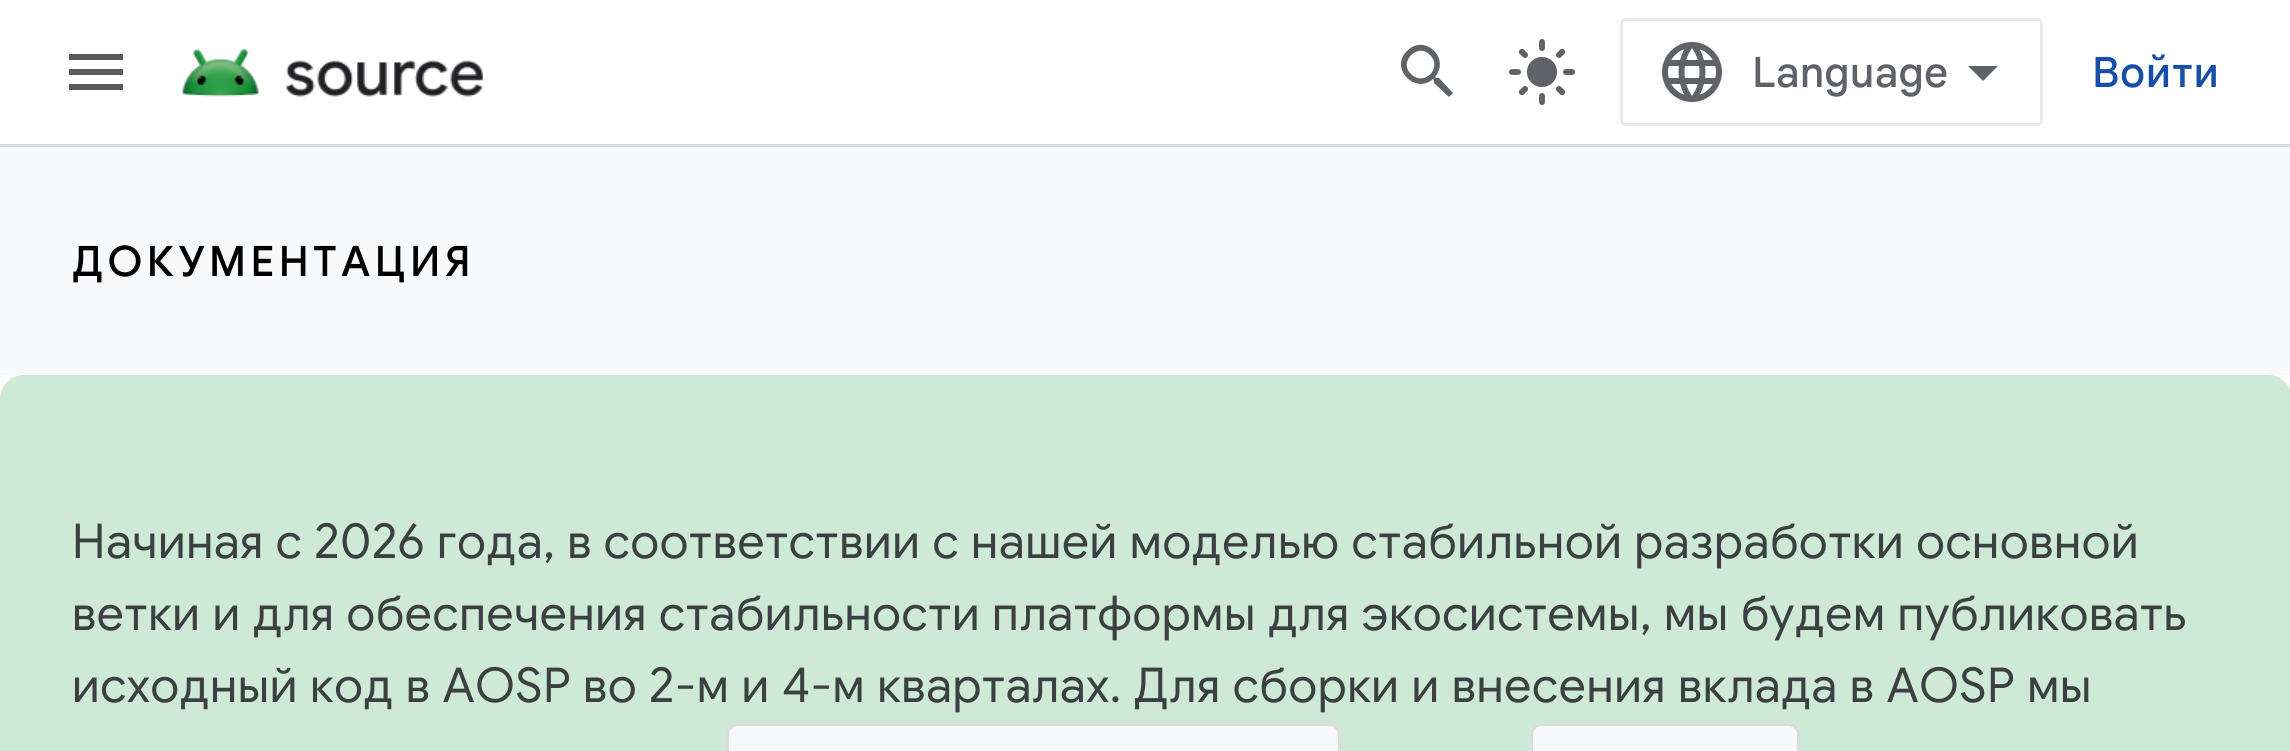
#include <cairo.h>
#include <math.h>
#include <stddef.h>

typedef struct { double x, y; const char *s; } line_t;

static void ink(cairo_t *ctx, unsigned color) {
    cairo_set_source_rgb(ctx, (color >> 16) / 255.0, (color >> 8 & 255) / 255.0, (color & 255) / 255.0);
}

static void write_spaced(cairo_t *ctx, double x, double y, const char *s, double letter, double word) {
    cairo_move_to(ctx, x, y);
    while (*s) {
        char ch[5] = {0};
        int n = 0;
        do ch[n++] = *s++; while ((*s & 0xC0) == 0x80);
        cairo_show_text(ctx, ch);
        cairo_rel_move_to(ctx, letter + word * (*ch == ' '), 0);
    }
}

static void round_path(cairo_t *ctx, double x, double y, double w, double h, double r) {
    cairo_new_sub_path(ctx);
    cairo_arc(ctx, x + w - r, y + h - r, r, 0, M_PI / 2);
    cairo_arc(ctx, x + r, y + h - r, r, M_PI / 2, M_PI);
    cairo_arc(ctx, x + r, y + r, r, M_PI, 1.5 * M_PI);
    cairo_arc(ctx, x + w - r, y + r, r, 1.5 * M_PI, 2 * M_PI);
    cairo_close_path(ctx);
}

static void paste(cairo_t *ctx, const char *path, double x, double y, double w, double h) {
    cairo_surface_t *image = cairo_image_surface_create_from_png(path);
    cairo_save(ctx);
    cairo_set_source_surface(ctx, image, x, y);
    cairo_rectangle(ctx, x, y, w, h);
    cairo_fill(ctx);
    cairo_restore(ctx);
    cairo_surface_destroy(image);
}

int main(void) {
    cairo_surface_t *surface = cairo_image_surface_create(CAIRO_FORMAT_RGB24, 2290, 751);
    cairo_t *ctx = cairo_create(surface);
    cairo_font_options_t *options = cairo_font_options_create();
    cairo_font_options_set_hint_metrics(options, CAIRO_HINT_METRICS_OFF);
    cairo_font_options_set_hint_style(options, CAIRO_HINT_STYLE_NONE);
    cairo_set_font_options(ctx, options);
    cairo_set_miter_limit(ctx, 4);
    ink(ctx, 0xFFFFFF);
    cairo_paint(ctx);
    ink(ctx, 0xDADCE0);
    cairo_rectangle(ctx, 0, 144, 2290, 3);
    cairo_fill(ctx);
    ink(ctx, 0x595959);
    cairo_new_path(ctx);
    cairo_move_to(ctx, 69, 54);
    cairo_line_to(ctx, 123, 54);
    cairo_line_to(ctx, 123, 60);
    cairo_line_to(ctx, 69, 60);
    cairo_close_path(ctx);
    cairo_move_to(ctx, 69, 75);
    cairo_line_to(ctx, 69, 69);
    cairo_line_to(ctx, 123, 69);
    cairo_line_to(ctx, 123, 75);
    cairo_close_path(ctx);
    cairo_move_to(ctx, 69, 90);
    cairo_line_to(ctx, 69, 84);
    cairo_line_to(ctx, 123, 84);
    cairo_line_to(ctx, 123, 90);
    cairo_close_path(ctx);
    cairo_fill(ctx);
    paste(ctx, "media/1.png", 181, 48, 302, 49);
    ink(ctx, 0x5F6368);
    cairo_new_path(ctx);
    cairo_move_to(ctx, 1411, 74);
    cairo_curve_to(ctx, 1424, 87, 1443, 68, 1430, 55);
    cairo_curve_to(ctx, 1418, 42, 1398, 62, 1411, 74);
    cairo_close_path(ctx);
    cairo_move_to(ctx, 1439, 78);
    cairo_line_to(ctx, 1453, 93);
    cairo_line_to(ctx, 1449, 97);
    cairo_line_to(ctx, 1434, 83);
    cairo_line_to(ctx, 1434, 80);
    cairo_line_to(ctx, 1433, 79);
    cairo_curve_to(ctx, 1415, 95, 1389, 68, 1407, 51);
    cairo_curve_to(ctx, 1424, 33, 1451, 58, 1435, 77);
    cairo_line_to(ctx, 1436, 78);
    cairo_close_path(ctx);
    cairo_fill(ctx);
    paste(ctx, "media/2.png", 1509, 39, 66, 66);
    round_path(ctx, 1621.5, 19.5, 420, 105, 4.5);
    ink(ctx, 0xE8EAED);
    cairo_set_line_width(ctx, 3);
    cairo_stroke(ctx);
    paste(ctx, "media/3.png", 1662, 42, 60, 60);
    cairo_select_font_face(ctx, "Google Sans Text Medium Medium", CAIRO_FONT_SLANT_NORMAL, CAIRO_FONT_WEIGHT_NORMAL);
    cairo_set_font_size(ctx, 42);
    ink(ctx, 0x5F6368);
    cairo_move_to(ctx, 1752, 87);
    cairo_show_text(ctx, "Language");
    cairo_new_path(ctx);
    cairo_move_to(ctx, 1983, 81);
    cairo_line_to(ctx, 1968, 66);
    cairo_line_to(ctx, 1998, 66);
    cairo_close_path(ctx);
    cairo_fill(ctx);
    ink(ctx, 0x174EA6);
    write_spaced(ctx, 2092, 87, "Войти", 0.75, 0);
    ink(ctx, 0xF8F9FA);
    cairo_rectangle(ctx, 0, 147, 2290, 228);
    cairo_fill(ctx);
    cairo_select_font_face(ctx, "Google Sans Medium", CAIRO_FONT_SLANT_NORMAL, CAIRO_FONT_WEIGHT_NORMAL);
    ink(ctx, 0x000000);
    write_spaced(ctx, 72, 276, "ДОКУМЕНТАЦИЯ", 4.5, 0);
    ink(ctx, 0xCEEAD6);
    cairo_new_path(ctx);
    cairo_move_to(ctx, 24, 375);
    cairo_line_to(ctx, 2268, 375);
    cairo_curve_to(ctx, 2281.5, 375, 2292, 385.5, 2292, 399);
    cairo_line_to(ctx, 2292, 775);
    cairo_line_to(ctx, 0, 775);
    cairo_line_to(ctx, 0, 399);
    cairo_curve_to(ctx, 0, 385.5, 10.5, 375, 24, 375);
    cairo_close_path(ctx);
    cairo_fill(ctx);
    cairo_select_font_face(ctx, "Google Sans", CAIRO_FONT_SLANT_NORMAL, CAIRO_FONT_WEIGHT_NORMAL);
    cairo_set_font_size(ctx, 48);
    ink(ctx, 0x3C4043);
    {
        static const line_t items[] = {
            {72, 558, "Начиная с 2026 года, в соответствии с нашей моделью стабильной разработки основной"},
            {72, 630, "ветки и для обеспечения стабильности платформы для экосистемы, мы будем публиковать"},
            {72, 702, "исходный код в AOSP во 2-м и 4-м кварталах. Для сборки и внесения вклада в AOSP мы"},
        };
        for (size_t i = 0; i < sizeof items / sizeof *items; i++) {
            write_spaced(ctx, items[i].x, items[i].y, items[i].s, 0.75, 0);
        }
    }
    ink(ctx, 0xF8F9FA);
    round_path(ctx, 727.5, 724.5, 612, 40, 10.5);
    cairo_fill_preserve(ctx);
    ink(ctx, 0xDADCE0);
    cairo_stroke(ctx);
    ink(ctx, 0xF8F9FA);
    round_path(ctx, 1531.5, 724.5, 267, 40, 10.5);
    cairo_fill_preserve(ctx);
    ink(ctx, 0xDADCE0);
    cairo_stroke(ctx);
    cairo_surface_write_to_png(surface, "image.png");
    cairo_font_options_destroy(options);
    cairo_destroy(ctx);
    cairo_surface_destroy(surface);
    return 0;
}
